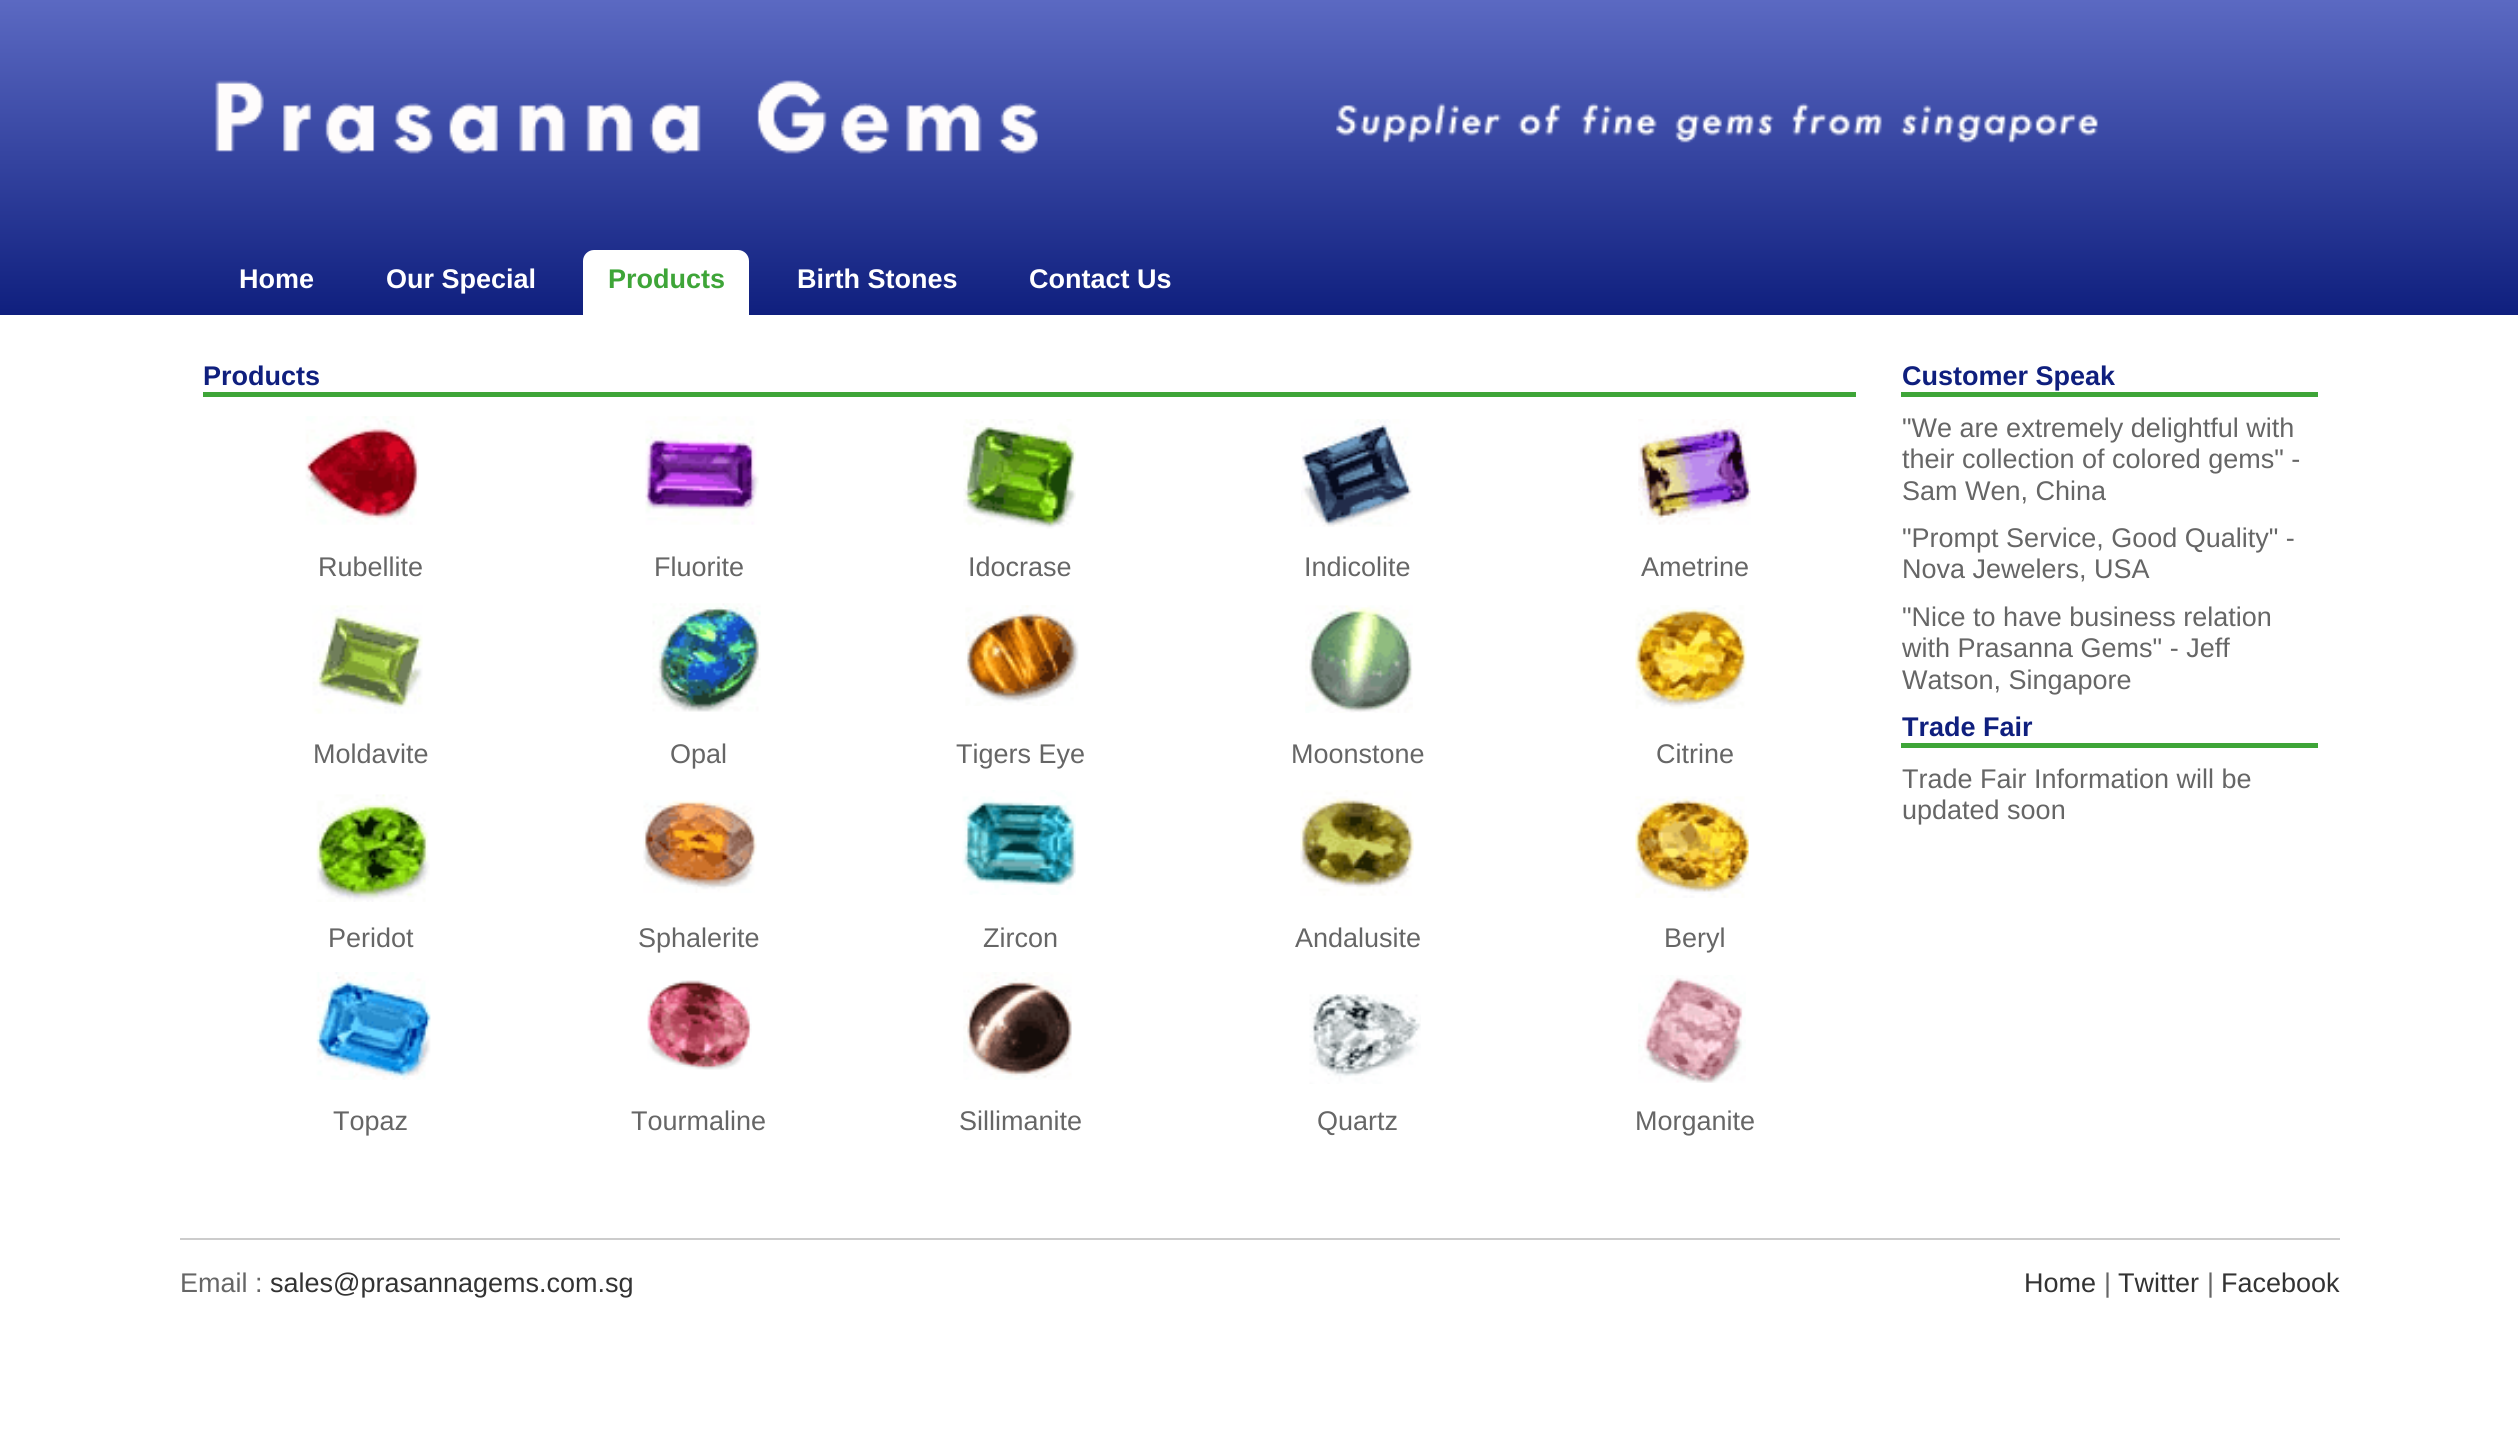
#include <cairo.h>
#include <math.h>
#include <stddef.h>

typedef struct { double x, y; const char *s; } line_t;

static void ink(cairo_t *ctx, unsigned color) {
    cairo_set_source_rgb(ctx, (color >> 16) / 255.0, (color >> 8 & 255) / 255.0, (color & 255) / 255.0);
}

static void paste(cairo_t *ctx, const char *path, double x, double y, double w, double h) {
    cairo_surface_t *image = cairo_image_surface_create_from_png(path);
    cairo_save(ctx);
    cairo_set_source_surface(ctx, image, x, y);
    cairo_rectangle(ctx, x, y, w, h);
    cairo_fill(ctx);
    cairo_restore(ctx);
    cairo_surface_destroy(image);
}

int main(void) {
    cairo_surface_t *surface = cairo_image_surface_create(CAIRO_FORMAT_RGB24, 2518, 1450);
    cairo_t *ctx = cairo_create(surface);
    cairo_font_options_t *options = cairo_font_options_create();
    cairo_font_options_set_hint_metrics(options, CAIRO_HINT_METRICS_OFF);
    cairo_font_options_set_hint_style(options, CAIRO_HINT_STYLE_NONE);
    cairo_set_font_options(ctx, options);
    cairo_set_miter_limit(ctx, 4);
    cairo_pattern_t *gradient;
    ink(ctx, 0xFFFFFF);
    cairo_paint(ctx);
    gradient = cairo_pattern_create_linear(0, 0, 0, 315);
    cairo_pattern_add_color_stop_rgba(gradient, 0, 0.357, 0.412, 0.761, 1);
    cairo_pattern_add_color_stop_rgba(gradient, 1, 0.059, 0.122, 0.494, 1);
    cairo_set_source(ctx, gradient);
    cairo_pattern_destroy(gradient);
    cairo_rectangle(ctx, 0, 0, 2518, 315);
    cairo_fill(ctx);
    paste(ctx, "media/1.png", 215, 80, 823, 74);
    paste(ctx, "media/2.png", 1336, 103, 762, 40);
    cairo_select_font_face(ctx, "Liberation Sans", CAIRO_FONT_SLANT_NORMAL, CAIRO_FONT_WEIGHT_BOLD);
    cairo_set_font_size(ctx, 27);
    ink(ctx, 0xFFFFFF);
    cairo_move_to(ctx, 239, 288);
    cairo_show_text(ctx, "Home");
    cairo_move_to(ctx, 386, 288);
    cairo_show_text(ctx, "Our Special");
    cairo_new_path(ctx);
    cairo_move_to(ctx, 594, 250);
    cairo_line_to(ctx, 738, 250);
    cairo_curve_to(ctx, 744, 250, 749, 255, 749, 261);
    cairo_line_to(ctx, 749, 315);
    cairo_line_to(ctx, 583, 315);
    cairo_line_to(ctx, 583, 261);
    cairo_curve_to(ctx, 583, 255, 588, 250, 594, 250);
    cairo_close_path(ctx);
    cairo_fill(ctx);
    ink(ctx, 0x3EA538);
    cairo_move_to(ctx, 608, 288);
    cairo_show_text(ctx, "Products");
    ink(ctx, 0xFFFFFF);
    cairo_move_to(ctx, 797, 288);
    cairo_show_text(ctx, "Birth Stones");
    cairo_move_to(ctx, 1029, 288);
    cairo_show_text(ctx, "Contact Us");
    ink(ctx, 0x3EA538);
    cairo_rectangle(ctx, 203, 392, 1653, 5);
    cairo_fill(ctx);
    ink(ctx, 0x0F1F7E);
    cairo_move_to(ctx, 203, 385);
    cairo_show_text(ctx, "Products");
    paste(ctx, "media/3.png", 305, 416, 114, 109);
    paste(ctx, "media/4.png", 645, 416, 114, 109);
    paste(ctx, "media/5.png", 963, 419, 113, 110);
    paste(ctx, "media/6.png", 1301, 419, 112, 108);
    paste(ctx, "media/7.png", 1638, 419, 113, 106);
    cairo_select_font_face(ctx, "Liberation Sans", CAIRO_FONT_SLANT_NORMAL, CAIRO_FONT_WEIGHT_NORMAL);
    ink(ctx, 0x666666);
    {
        static const line_t items[] = {
            {318, 576, "Rubellite"},
            {654, 576, "Fluorite"},
            {968, 576, "Idocrase"},
            {1304, 576, "Indicolite"},
            {1641, 576, "Ametrine"},
        };
        for (size_t i = 0; i < sizeof items / sizeof *items; i++) {
            cairo_move_to(ctx, items[i].x, items[i].y);
            cairo_show_text(ctx, items[i].s);
        }
    }
    paste(ctx, "media/8.png", 312, 605, 111, 109);
    paste(ctx, "media/9.png", 652, 603, 109, 109);
    paste(ctx, "media/10.png", 965, 605, 114, 101);
    paste(ctx, "media/11.png", 1305, 605, 108, 108);
    paste(ctx, "media/12.png", 1635, 605, 112, 104);
    {
        static const line_t items[] = {
            {313, 763, "Moldavite"},
            {670, 763, "Opal"},
            {956, 763, "Tigers Eye"},
            {1291, 763, "Moonstone"},
            {1656, 763, "Citrine"},
        };
        for (size_t i = 0; i < sizeof items / sizeof *items; i++) {
            cairo_move_to(ctx, items[i].x, items[i].y);
            cairo_show_text(ctx, items[i].s);
        }
    }
    paste(ctx, "media/13.png", 316, 794, 114, 108);
    paste(ctx, "media/14.png", 643, 800, 114, 93);
    paste(ctx, "media/15.png", 962, 790, 114, 105);
    paste(ctx, "media/16.png", 1300, 790, 114, 106);
    paste(ctx, "media/17.png", 1635, 796, 114, 102);
    {
        static const line_t items[] = {
            {328, 947, "Peridot"},
            {638, 947, "Sphalerite"},
            {983, 947, "Zircon"},
            {1295, 947, "Andalusite"},
            {1664, 947, "Beryl"},
        };
        for (size_t i = 0; i < sizeof items / sizeof *items; i++) {
            cairo_move_to(ctx, items[i].x, items[i].y);
            cairo_show_text(ctx, items[i].s);
        }
    }
    paste(ctx, "media/18.png", 316, 972, 115, 108);
    paste(ctx, "media/19.png", 647, 980, 105, 90);
    paste(ctx, "media/20.png", 963, 972, 109, 108);
    paste(ctx, "media/21.png", 1309, 994, 112, 90);
    paste(ctx, "media/22.png", 1638, 975, 108, 108);
    {
        static const line_t items[] = {
            {333, 1130, "Topaz"},
            {631, 1130, "Tourmaline"},
            {959, 1130, "Sillimanite"},
            {1317, 1130, "Quartz"},
            {1635, 1130, "Morganite"},
        };
        for (size_t i = 0; i < sizeof items / sizeof *items; i++) {
            cairo_move_to(ctx, items[i].x, items[i].y);
            cairo_show_text(ctx, items[i].s);
        }
    }
    ink(ctx, 0x3EA538);
    cairo_rectangle(ctx, 1901, 392, 417, 5);
    cairo_fill(ctx);
    cairo_select_font_face(ctx, "Liberation Sans", CAIRO_FONT_SLANT_NORMAL, CAIRO_FONT_WEIGHT_BOLD);
    ink(ctx, 0x0F1F7E);
    cairo_move_to(ctx, 1902, 385);
    cairo_show_text(ctx, "Customer Speak");
    cairo_select_font_face(ctx, "Liberation Sans", CAIRO_FONT_SLANT_NORMAL, CAIRO_FONT_WEIGHT_NORMAL);
    ink(ctx, 0x666666);
    {
        static const line_t items[] = {
            {1902, 437, "\"We are extremely delightful with"},
            {1902, 468, "their collection of colored gems\" -"},
            {1902, 500, "Sam Wen, China"},
            {1902, 547, "\"Prompt Service, Good Quality\" -"},
            {1902, 578, "Nova Jewelers, USA"},
            {1902, 626, "\"Nice to have business relation"},
            {1902, 657, "with Prasanna Gems\" - Jeff"},
            {1902, 689, "Watson, Singapore"},
        };
        for (size_t i = 0; i < sizeof items / sizeof *items; i++) {
            cairo_move_to(ctx, items[i].x, items[i].y);
            cairo_show_text(ctx, items[i].s);
        }
    }
    ink(ctx, 0x3EA538);
    cairo_rectangle(ctx, 1901, 743, 417, 5);
    cairo_fill(ctx);
    cairo_select_font_face(ctx, "Liberation Sans", CAIRO_FONT_SLANT_NORMAL, CAIRO_FONT_WEIGHT_BOLD);
    ink(ctx, 0x0F1F7E);
    cairo_move_to(ctx, 1902, 736);
    cairo_show_text(ctx, "Trade Fair");
    cairo_select_font_face(ctx, "Liberation Sans", CAIRO_FONT_SLANT_NORMAL, CAIRO_FONT_WEIGHT_NORMAL);
    ink(ctx, 0x666666);
    cairo_move_to(ctx, 1902, 788);
    cairo_show_text(ctx, "Trade Fair Information will be");
    cairo_move_to(ctx, 1902, 819);
    cairo_show_text(ctx, "updated soon");
    ink(ctx, 0xCCCCCC);
    cairo_rectangle(ctx, 180, 1238, 2160, 2);
    cairo_fill(ctx);
    ink(ctx, 0x666666);
    cairo_move_to(ctx, 180, 1292);
    cairo_show_text(ctx, "Email :");
    ink(ctx, 0x333333);
    cairo_move_to(ctx, 270, 1292);
    cairo_show_text(ctx, "sales@prasannagems.com.sg");
    cairo_move_to(ctx, 2024, 1292);
    cairo_show_text(ctx, "Home");
    ink(ctx, 0x666666);
    cairo_move_to(ctx, 2104, 1292);
    cairo_show_text(ctx, "|");
    ink(ctx, 0x333333);
    cairo_move_to(ctx, 2118, 1292);
    cairo_show_text(ctx, "Twitter");
    ink(ctx, 0x666666);
    cairo_move_to(ctx, 2207, 1292);
    cairo_show_text(ctx, "|");
    ink(ctx, 0x333333);
    cairo_move_to(ctx, 2221, 1292);
    cairo_show_text(ctx, "Facebook");
    cairo_surface_write_to_png(surface, "image.png");
    cairo_font_options_destroy(options);
    cairo_destroy(ctx);
    cairo_surface_destroy(surface);
    return 0;
}
